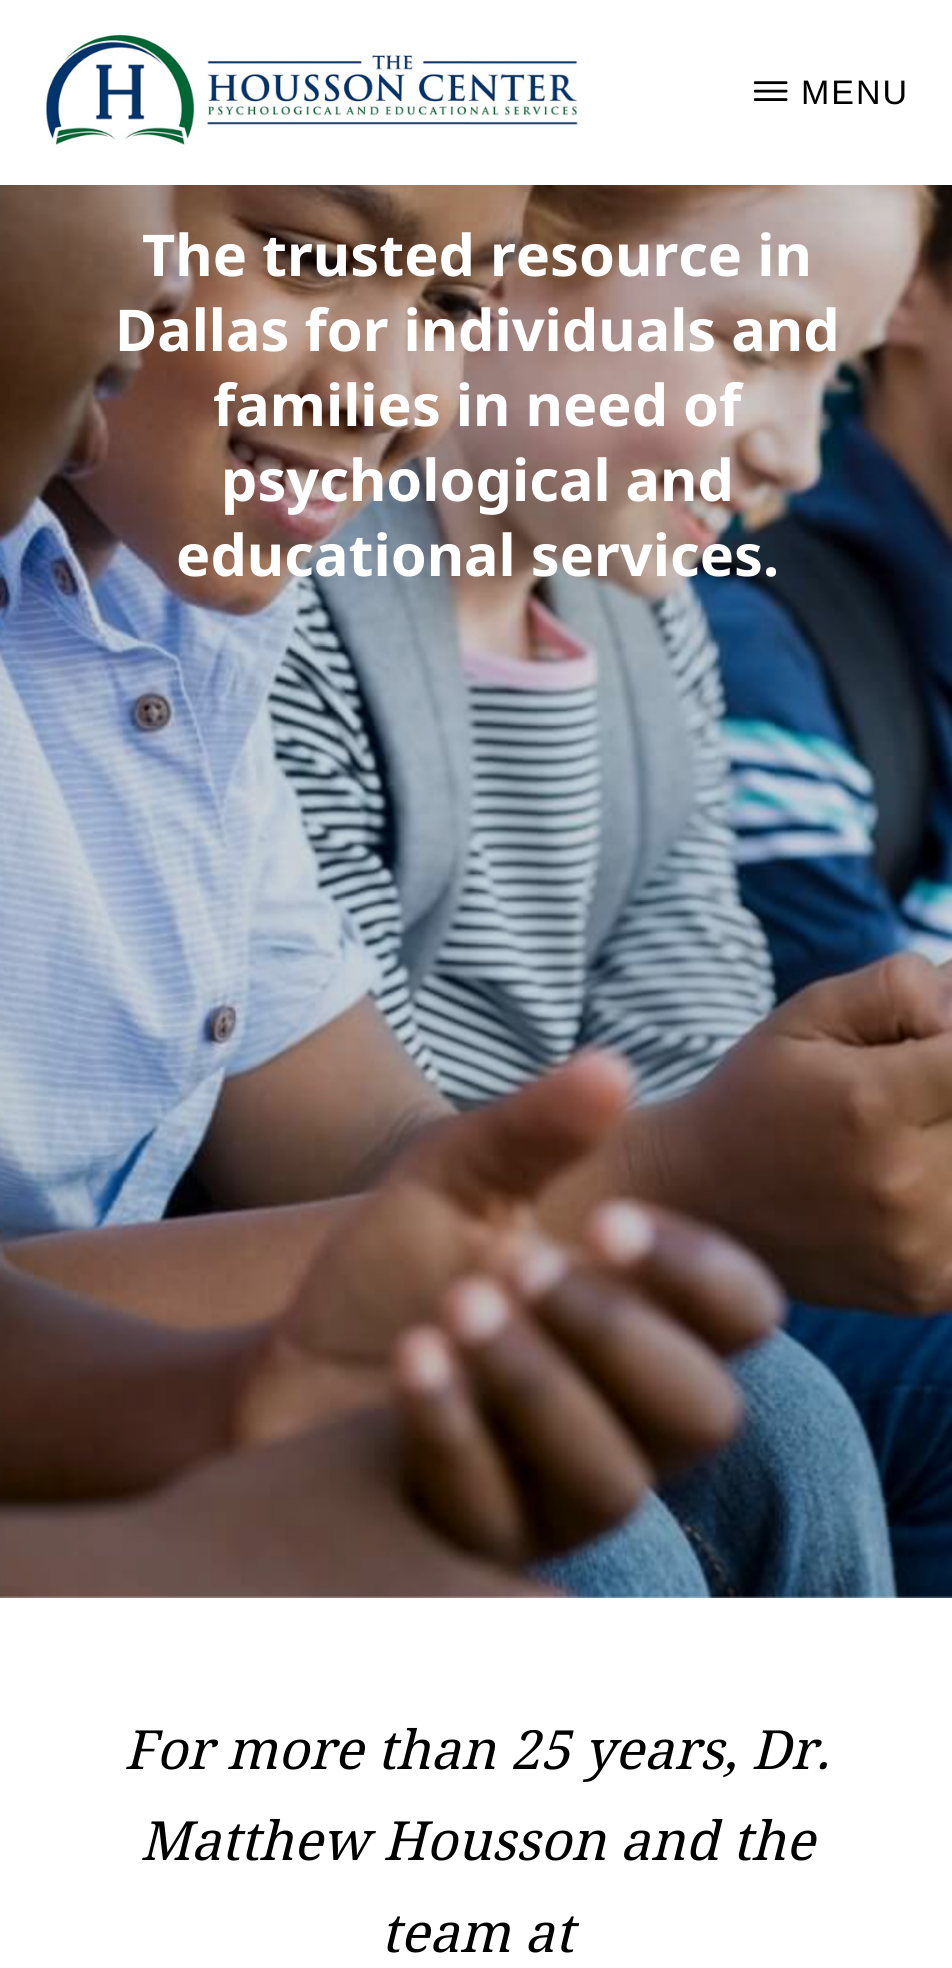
#include <cairo.h>
#include <math.h>
#include <stddef.h>

typedef struct { double x, y; const char *s; } line_t;

static void ink(cairo_t *ctx, unsigned color) {
    cairo_set_source_rgb(ctx, (color >> 16) / 255.0, (color >> 8 & 255) / 255.0, (color & 255) / 255.0);
}

static void write_spaced(cairo_t *ctx, double x, double y, const char *s, double letter, double word) {
    cairo_move_to(ctx, x, y);
    while (*s) {
        char ch[5] = {0};
        int n = 0;
        do ch[n++] = *s++; while ((*s & 0xC0) == 0x80);
        cairo_show_text(ctx, ch);
        cairo_rel_move_to(ctx, letter + word * (*ch == ' '), 0);
    }
}

static void round_path(cairo_t *ctx, double x, double y, double w, double h, double r) {
    cairo_new_sub_path(ctx);
    cairo_arc(ctx, x + w - r, y + h - r, r, 0, M_PI / 2);
    cairo_arc(ctx, x + r, y + h - r, r, M_PI / 2, M_PI);
    cairo_arc(ctx, x + r, y + r, r, M_PI, 1.5 * M_PI);
    cairo_arc(ctx, x + w - r, y + r, r, 1.5 * M_PI, 2 * M_PI);
    cairo_close_path(ctx);
}

static void blur_box(cairo_t *ctx, double x, double y, double w, double h, double r, double blur, double alpha) {
    cairo_push_group_with_content(ctx, CAIRO_CONTENT_ALPHA);
    cairo_set_operator(ctx, CAIRO_OPERATOR_SOURCE);
    for (int i = 15; i >= -15 && fmin(w, h) + blur * i / 3 > 0; i -= 2) {
        double e = blur * i / 6;
        cairo_set_source_rgba(ctx, 0, 0, 0, alpha * erfc((i - 1) / 8.5) / 2);
        round_path(ctx, x - e, y - e, w + 2 * e, h + 2 * e, fmax(0, fmin(r + e + blur * .6, fmin(w, h) / 2 + e)));
        cairo_fill(ctx);
    }
    cairo_pattern_t *soft = cairo_pop_group(ctx);
    cairo_mask(ctx, soft);
    cairo_pattern_destroy(soft);
}

static void paste(cairo_t *ctx, const char *path, double x, double y, double w, double h) {
    cairo_surface_t *image = cairo_image_surface_create_from_png(path);
    cairo_save(ctx);
    cairo_set_source_surface(ctx, image, x, y);
    cairo_rectangle(ctx, x, y, w, h);
    cairo_fill(ctx);
    cairo_restore(ctx);
    cairo_surface_destroy(image);
}

int main(void) {
    cairo_surface_t *surface = cairo_image_surface_create(CAIRO_FORMAT_RGB24, 952, 1968);
    cairo_t *ctx = cairo_create(surface);
    cairo_font_options_t *options = cairo_font_options_create();
    cairo_font_options_set_hint_metrics(options, CAIRO_HINT_METRICS_OFF);
    cairo_font_options_set_hint_style(options, CAIRO_HINT_STYLE_NONE);
    cairo_set_font_options(ctx, options);
    cairo_set_miter_limit(ctx, 4);
    ink(ctx, 0xFFFFFF);
    cairo_paint(ctx);
    paste(ctx, "media/3.png", 0, 185, 952, 1413);
    ink(ctx, 0x000000);
    blur_box(ctx, 0, 0, 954, 185, 0, 22.5, 0.05);
    ink(ctx, 0xFFFFFF);
    cairo_rectangle(ctx, 0, 0, 952, 185);
    cairo_fill(ctx);
    paste(ctx, "media/1.png", 45, 34, 533, 112);
    paste(ctx, "media/2.png", 754, 81, 34, 20);
    cairo_select_font_face(ctx, "Liberation Sans", CAIRO_FONT_SLANT_NORMAL, CAIRO_FONT_WEIGHT_NORMAL);
    cairo_set_font_size(ctx, 34);
    ink(ctx, 0x000000);
    write_spaced(ctx, 801, 104, "MENU", 2, 0);
    cairo_select_font_face(ctx, "Noto Sans", CAIRO_FONT_SLANT_NORMAL, CAIRO_FONT_WEIGHT_BOLD);
    cairo_set_font_size(ctx, 57.6);
    ink(ctx, 0xFFFFFF);
    {
        static const line_t items[] = {
            {142, 276, "The trusted resource in"},
            {115, 351, "Dallas for individuals and"},
            {213, 426, "families in need of"},
            {221, 501, "psychological and"},
            {176, 576, "educational services."},
        };
        for (size_t i = 0; i < sizeof items / sizeof *items; i++) {
            cairo_move_to(ctx, items[i].x, items[i].y);
            cairo_show_text(ctx, items[i].s);
        }
    }
    cairo_select_font_face(ctx, "Noto Serif", CAIRO_FONT_SLANT_ITALIC, CAIRO_FONT_WEIGHT_NORMAL);
    cairo_set_font_size(ctx, 54);
    ink(ctx, 0x000000);
    {
        static const line_t items[] = {
            {124, 1769, "For more than 25 years, Dr."},
            {140, 1860, "Matthew Housson and the"},
            {381, 1952, "team at"},
        };
        for (size_t i = 0; i < sizeof items / sizeof *items; i++) {
            cairo_move_to(ctx, items[i].x, items[i].y);
            cairo_show_text(ctx, items[i].s);
        }
    }
    cairo_surface_write_to_png(surface, "image.png");
    cairo_font_options_destroy(options);
    cairo_destroy(ctx);
    cairo_surface_destroy(surface);
    return 0;
}
